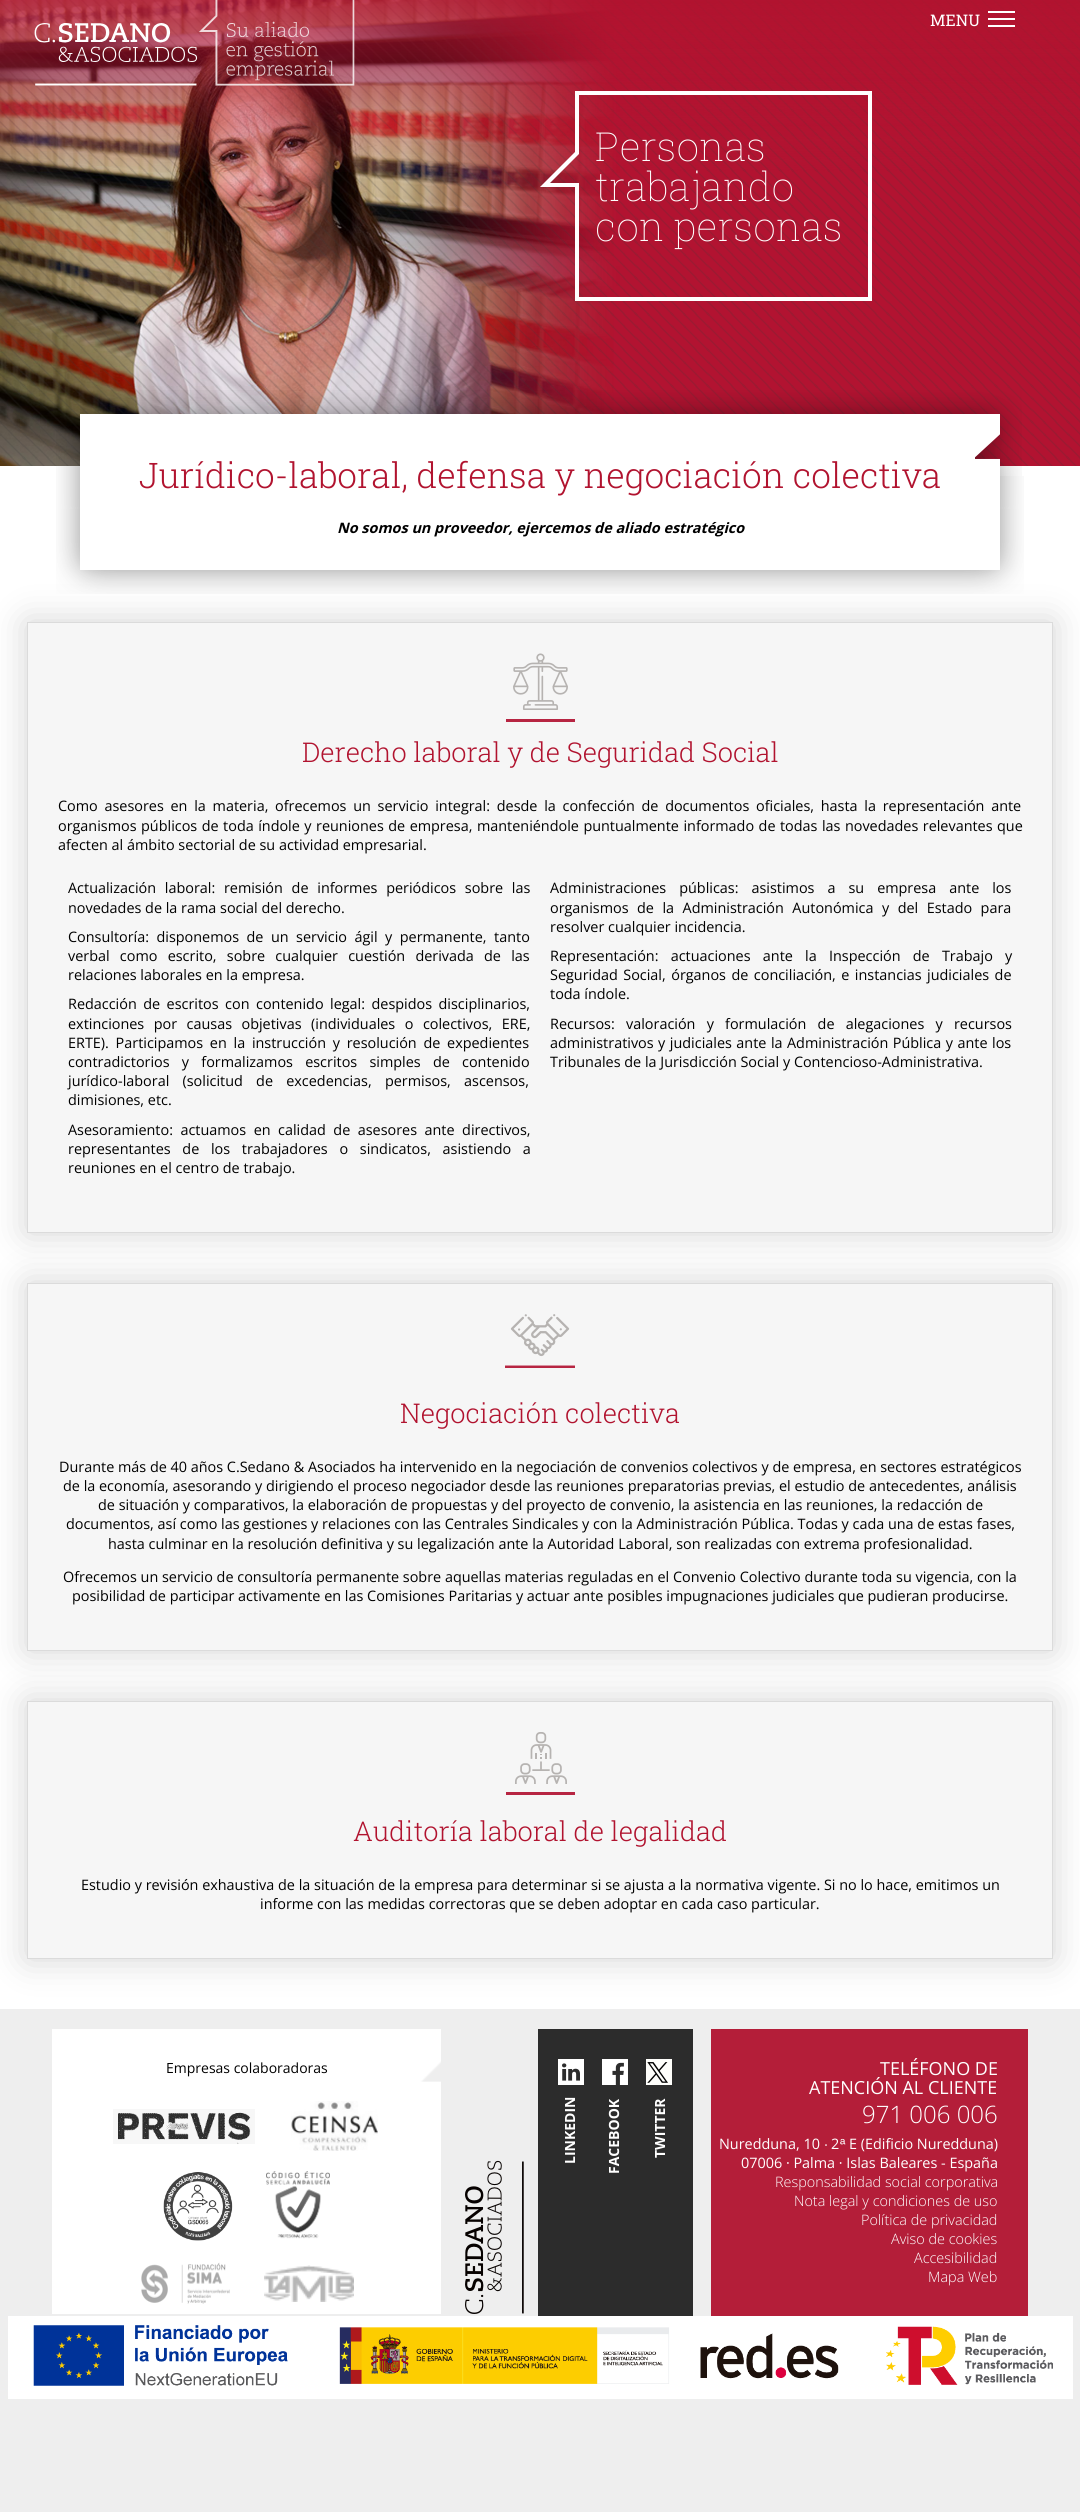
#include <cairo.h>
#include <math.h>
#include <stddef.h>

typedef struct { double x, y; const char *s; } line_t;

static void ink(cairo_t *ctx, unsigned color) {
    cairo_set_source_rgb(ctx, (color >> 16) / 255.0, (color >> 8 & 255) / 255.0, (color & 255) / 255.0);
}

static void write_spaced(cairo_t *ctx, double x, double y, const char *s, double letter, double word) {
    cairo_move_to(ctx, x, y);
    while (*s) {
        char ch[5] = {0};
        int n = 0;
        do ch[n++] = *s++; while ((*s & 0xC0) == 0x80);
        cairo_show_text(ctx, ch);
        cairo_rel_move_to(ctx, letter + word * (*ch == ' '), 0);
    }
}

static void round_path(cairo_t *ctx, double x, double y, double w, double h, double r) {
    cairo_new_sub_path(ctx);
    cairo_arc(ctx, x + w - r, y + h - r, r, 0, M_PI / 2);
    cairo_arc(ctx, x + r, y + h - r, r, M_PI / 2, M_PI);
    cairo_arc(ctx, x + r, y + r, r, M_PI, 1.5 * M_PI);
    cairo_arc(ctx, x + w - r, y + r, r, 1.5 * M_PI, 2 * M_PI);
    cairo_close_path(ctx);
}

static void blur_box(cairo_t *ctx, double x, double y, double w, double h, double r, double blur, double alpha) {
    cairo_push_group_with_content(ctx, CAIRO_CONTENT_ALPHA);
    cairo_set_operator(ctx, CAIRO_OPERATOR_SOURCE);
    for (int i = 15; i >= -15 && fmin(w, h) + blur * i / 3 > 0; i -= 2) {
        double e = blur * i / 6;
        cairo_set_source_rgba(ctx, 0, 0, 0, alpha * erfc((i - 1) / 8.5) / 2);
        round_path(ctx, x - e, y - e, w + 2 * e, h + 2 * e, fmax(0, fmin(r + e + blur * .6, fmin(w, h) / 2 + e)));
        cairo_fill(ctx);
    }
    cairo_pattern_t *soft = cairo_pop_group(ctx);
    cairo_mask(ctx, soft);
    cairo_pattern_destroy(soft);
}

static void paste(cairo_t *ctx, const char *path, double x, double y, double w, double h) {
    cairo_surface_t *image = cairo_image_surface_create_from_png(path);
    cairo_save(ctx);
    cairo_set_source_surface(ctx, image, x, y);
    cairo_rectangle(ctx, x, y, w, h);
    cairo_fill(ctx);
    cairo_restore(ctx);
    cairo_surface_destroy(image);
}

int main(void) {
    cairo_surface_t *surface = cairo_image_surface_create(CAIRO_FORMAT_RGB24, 1080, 2512);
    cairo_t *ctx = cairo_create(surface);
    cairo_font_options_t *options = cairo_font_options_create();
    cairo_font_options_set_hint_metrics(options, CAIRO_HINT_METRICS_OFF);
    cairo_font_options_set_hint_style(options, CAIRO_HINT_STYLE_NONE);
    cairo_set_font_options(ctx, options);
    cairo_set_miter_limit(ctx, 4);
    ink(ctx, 0xFFFFFF);
    cairo_paint(ctx);
    paste(ctx, "media/3.png", 0, 0, 1080, 466);
    paste(ctx, "media/4.png", 0, 0, 1080, 466);
    paste(ctx, "media/1.png", 0, 0, 1080, 172);
    paste(ctx, "media/2.png", 34, 0, 321, 86);
    ink(ctx, 0xFFFFFF);
    cairo_rectangle(ctx, 988, 11, 27, 2);
    cairo_fill(ctx);
    cairo_select_font_face(ctx, "Roboto Slab", CAIRO_FONT_SLANT_NORMAL, CAIRO_FONT_WEIGHT_NORMAL);
    cairo_set_font_size(ctx, 16);
    cairo_move_to(ctx, 930, 26);
    cairo_show_text(ctx, "MENU");
    cairo_rectangle(ctx, 988, 18, 27, 2);
    cairo_fill(ctx);
    cairo_rectangle(ctx, 988, 25, 27, 2);
    cairo_fill(ctx);
    cairo_set_fill_rule(ctx, CAIRO_FILL_RULE_EVEN_ODD);
    cairo_new_path(ctx);
    cairo_move_to(ctx, 579, 297);
    cairo_line_to(ctx, 868, 297);
    cairo_line_to(ctx, 868, 95);
    cairo_line_to(ctx, 579, 95);
    cairo_line_to(ctx, 579, 154);
    cairo_line_to(ctx, 550, 183);
    cairo_line_to(ctx, 579, 183);
    cairo_close_path(ctx);
    cairo_move_to(ctx, 872, 301);
    cairo_line_to(ctx, 575, 301);
    cairo_line_to(ctx, 575, 187);
    cairo_line_to(ctx, 540, 187);
    cairo_line_to(ctx, 575, 152);
    cairo_line_to(ctx, 575, 91);
    cairo_line_to(ctx, 872, 91);
    cairo_close_path(ctx);
    cairo_fill(ctx);
    cairo_select_font_face(ctx, "Roboto Slab Thin", CAIRO_FONT_SLANT_NORMAL, CAIRO_FONT_WEIGHT_NORMAL);
    cairo_set_font_size(ctx, 40);
    {
        static const line_t items[] = {
            {595, 161, "Personas"},
            {595, 201, "trabajando"},
            {595, 241, "con personas"},
        };
        for (size_t i = 0; i < sizeof items / sizeof *items; i++) {
            cairo_move_to(ctx, items[i].x, items[i].y);
            cairo_show_text(ctx, items[i].s);
        }
    }
    paste(ctx, "media/5.png", 140, 390, 800, 51);
    paste(ctx, "media/6.png", 56, 390, 84, 86);
    paste(ctx, "media/7.png", 940, 390, 82, 86);
    cairo_rectangle(ctx, 140, 441, 835, 25);
    cairo_fill(ctx);
    cairo_select_font_face(ctx, "Roboto Slab Light", CAIRO_FONT_SLANT_NORMAL, CAIRO_FONT_WEIGHT_NORMAL);
    cairo_set_font_size(ctx, 35.2);
    ink(ctx, 0xB1132F);
    cairo_move_to(ctx, 139, 488);
    cairo_show_text(ctx, "Jurídico-laboral, defensa y negociación colectiva");
    cairo_select_font_face(ctx, "Open Sans", CAIRO_FONT_SLANT_ITALIC, CAIRO_FONT_WEIGHT_BOLD);
    cairo_set_font_size(ctx, 14.4);
    ink(ctx, 0x000000);
    cairo_move_to(ctx, 337, 533);
    cairo_show_text(ctx, "No somos un proveedor, ejercemos de aliado estratégico");
    paste(ctx, "media/8.png", 56, 476, 24, 36);
    paste(ctx, "media/9.png", 1000, 476, 24, 36);
    ink(ctx, 0x888888);
    blur_box(ctx, 27, 622, 1026, 611, 0, 17.5, 0.37);
    paste(ctx, "media/10.png", 140, 570, 800, 24);
    paste(ctx, "media/11.png", 56, 512, 84, 82);
    paste(ctx, "media/12.png", 940, 512, 84, 82);
    ink(ctx, 0xF6F6F6);
    cairo_rectangle(ctx, 27.5, 622.5, 1025, 610);
    cairo_fill_preserve(ctx);
    ink(ctx, 0xDBDBDB);
    cairo_set_line_width(ctx, 1);
    cairo_stroke(ctx);
    paste(ctx, "media/13.png", 506, 653, 69, 69);
    cairo_select_font_face(ctx, "Roboto Slab Light", CAIRO_FONT_SLANT_NORMAL, CAIRO_FONT_WEIGHT_NORMAL);
    cairo_set_font_size(ctx, 27.25);
    ink(ctx, 0xB1132F);
    cairo_move_to(ctx, 302, 762);
    cairo_show_text(ctx, "Derecho laboral y de Seguridad Social");
    cairo_select_font_face(ctx, "Open Sans", CAIRO_FONT_SLANT_NORMAL, CAIRO_FONT_WEIGHT_NORMAL);
    cairo_set_font_size(ctx, 14.4);
    ink(ctx, 0x000000);
    write_spaced(ctx, 58, 811, "Como asesores en la materia, ofrecemos un servicio integral: desde la confección de documentos oficiales, hasta la representación ante", 0, 3);
    write_spaced(ctx, 58, 831, "organismos públicos de toda índole y reuniones de empresa, manteniéndole puntualmente informado de todas las novedades relevantes que", 0, 0.75);
    cairo_move_to(ctx, 58, 850);
    cairo_show_text(ctx, "afecten al ámbito sectorial de su actividad empresarial.");
    write_spaced(ctx, 68, 893, "Actualización laboral: remisión de informes periódicos sobre las", 0, 5);
    cairo_move_to(ctx, 68, 913);
    cairo_show_text(ctx, "novedades de la rama social del derecho.");
    write_spaced(ctx, 68, 942, "Consultoría: disponemos de un servicio ágil y permanente, tanto", 0, 3.75);
    write_spaced(ctx, 68, 961, "verbal como escrito, sobre cualquier cuestión derivada de las", 0, 6.5);
    cairo_move_to(ctx, 68, 980);
    cairo_show_text(ctx, "relaciones laborales en la empresa.");
    write_spaced(ctx, 68, 1009, "Redacción de escritos con contenido legal: despidos disciplinarios,", 0, 2.75);
    write_spaced(ctx, 68, 1029, "extinciones por causas objetivas (individuales o colectivos, ERE,", 0, 5.75);
    write_spaced(ctx, 68, 1048, "ERTE). Participamos en la instrucción y resolución de expedientes", 0, 3);
    write_spaced(ctx, 68, 1067, "contradictorios y formalizamos escritos simples de contenido", 0, 8.5);
    write_spaced(ctx, 68, 1086, "jurídico-laboral (solicitud de excedencias, permisos, ascensos,", 0, 9.5);
    cairo_move_to(ctx, 68, 1105);
    cairo_show_text(ctx, "dimisiones, etc.");
    write_spaced(ctx, 68, 1135, "Asesoramiento: actuamos en calidad de asesores ante directivos,", 0, 3.75);
    write_spaced(ctx, 68, 1154, "representantes de los trabajadores o sindicatos, asistiendo a", 0, 8);
    cairo_move_to(ctx, 68, 1173);
    cairo_show_text(ctx, "reuniones en el centro de trabajo.");
    write_spaced(ctx, 550, 893, "Administraciones públicas: asistimos a su empresa ante los", 0, 9.25);
    write_spaced(ctx, 550, 913, "organismos de la Administración Autonómica y del Estado para", 0, 4.75);
    cairo_move_to(ctx, 550, 932);
    cairo_show_text(ctx, "resolver cualquier incidencia.");
    write_spaced(ctx, 550, 961, "Representación: actuaciones ante la Inspección de Trabajo y", 0, 8.5);
    write_spaced(ctx, 550, 980, "Seguridad Social, órganos de conciliación, e instancias judiciales de", 0, 1.75);
    cairo_move_to(ctx, 550, 999);
    cairo_show_text(ctx, "toda índole.");
    write_spaced(ctx, 550, 1029, "Recursos: valoración y formulación de alegaciones y recursos", 0, 7.5);
    write_spaced(ctx, 550, 1048, "administrativos y judiciales ante la Administración Pública y ante los", 0, 0.75);
    cairo_move_to(ctx, 550, 1067);
    cairo_show_text(ctx, "Tribunales de la Jurisdicción Social y Contencioso-Administrativa.");
    ink(ctx, 0x888888);
    blur_box(ctx, 27, 1283, 1026, 368, 0, 17.5, 0.37);
    ink(ctx, 0xF6F6F6);
    cairo_rectangle(ctx, 27.5, 1283.5, 1025, 367);
    cairo_fill_preserve(ctx);
    ink(ctx, 0xDBDBDB);
    cairo_stroke(ctx);
    paste(ctx, "media/14.png", 505, 1314, 70, 54);
    cairo_select_font_face(ctx, "Roboto Slab Light", CAIRO_FONT_SLANT_NORMAL, CAIRO_FONT_WEIGHT_NORMAL);
    cairo_set_font_size(ctx, 27.25);
    ink(ctx, 0xB1132F);
    cairo_move_to(ctx, 400, 1423);
    cairo_show_text(ctx, "Negociación colectiva");
    cairo_select_font_face(ctx, "Open Sans", CAIRO_FONT_SLANT_NORMAL, CAIRO_FONT_WEIGHT_NORMAL);
    cairo_set_font_size(ctx, 14.4);
    ink(ctx, 0x000000);
    {
        static const line_t items[] = {
            {59, 1472, "Durante más de 40 años C.Sedano & Asociados ha intervenido en la negociación de convenios colectivos y de empresa, en sectores estratégicos"},
            {63, 1491, "de la economía, asesorando y dirigiendo el proceso negociador desde las reuniones preparatorias previas, el estudio de antecedentes, análisis"},
            {98, 1510, "de situación y comparativos, la elaboración de propuestas y del proyecto de convenio, la asistencia en las reuniones, la redacción de"},
            {66, 1529, "documentos, así como las gestiones y relaciones con las Centrales Sindicales y con la Administración Pública. Todas y cada una de estas fases,"},
            {108, 1549, "hasta culminar en la resolución definitiva y su legalización ante la Autoridad Laboral, son realizadas con extrema profesionalidad."},
            {63, 1582, "Ofrecemos un servicio de consultoría permanente sobre aquellas materias reguladas en el Convenio Colectivo durante toda su vigencia, con la"},
            {72, 1601, "posibilidad de participar activamente en las Comisiones Paritarias y actuar ante posibles impugnaciones judiciales que pudieran producirse."},
        };
        for (size_t i = 0; i < sizeof items / sizeof *items; i++) {
            cairo_move_to(ctx, items[i].x, items[i].y);
            cairo_show_text(ctx, items[i].s);
        }
    }
    ink(ctx, 0xEEEEEE);
    cairo_rectangle(ctx, 0, 2009, 1080, 503);
    cairo_fill(ctx);
    ink(ctx, 0x888888);
    blur_box(ctx, 27, 1701, 1026, 258, 0, 17.5, 0.37);
    ink(ctx, 0xF6F6F6);
    cairo_rectangle(ctx, 27.5, 1701.5, 1025, 257);
    cairo_fill_preserve(ctx);
    ink(ctx, 0xDBDBDB);
    cairo_stroke(ctx);
    paste(ctx, "media/15.png", 506, 1732, 69, 63);
    cairo_select_font_face(ctx, "Roboto Slab Light", CAIRO_FONT_SLANT_NORMAL, CAIRO_FONT_WEIGHT_NORMAL);
    cairo_set_font_size(ctx, 27.25);
    ink(ctx, 0xB1132F);
    cairo_move_to(ctx, 353, 1841);
    cairo_show_text(ctx, "Auditoría laboral de legalidad");
    cairo_select_font_face(ctx, "Open Sans", CAIRO_FONT_SLANT_NORMAL, CAIRO_FONT_WEIGHT_NORMAL);
    cairo_set_font_size(ctx, 14.4);
    ink(ctx, 0x000000);
    cairo_move_to(ctx, 81, 1890);
    cairo_show_text(ctx, "Estudio y revisión exhaustiva de la situación de la empresa para determinar si se ajusta a la normativa vigente. Si no lo hace, emitimos un");
    cairo_move_to(ctx, 260, 1909);
    cairo_show_text(ctx, "informe con las medidas correctoras que se deben adoptar en cada caso particular.");
    paste(ctx, "media/16.png", 52, 2029, 389, 285);
    cairo_set_font_size(ctx, 14);
    cairo_move_to(ctx, 166, 2073);
    cairo_show_text(ctx, "Empresas colaboradoras");
    paste(ctx, "media/17.png", 113, 2109, 142, 35);
    paste(ctx, "media/18.png", 291, 2101, 87, 50);
    paste(ctx, "media/19.png", 163, 2172, 70, 69);
    paste(ctx, "media/20.png", 266, 2171, 64, 68);
    paste(ctx, "media/21.png", 141, 2262, 89, 42);
    paste(ctx, "media/22.png", 264, 2265, 90, 37);
    ink(ctx, 0x2C2C2C);
    cairo_rectangle(ctx, 538, 2029, 155, 287);
    cairo_fill(ctx);
    paste(ctx, "media/23.png", 558, 2059, 26, 26);
    cairo_select_font_face(ctx, "Open Sans", CAIRO_FONT_SLANT_NORMAL, CAIRO_FONT_WEIGHT_BOLD);
    ink(ctx, 0xFFFFFF);
    cairo_save(ctx);
    cairo_translate(ctx, 575, 2164);
    cairo_rotate(ctx, -90 * M_PI / 180);
    cairo_move_to(ctx, 0, 0);
    cairo_show_text(ctx, "LINKEDIN");
    cairo_restore(ctx);
    paste(ctx, "media/24.png", 602, 2059, 26, 26);
    cairo_save(ctx);
    cairo_translate(ctx, 619, 2174);
    cairo_rotate(ctx, -90 * M_PI / 180);
    cairo_move_to(ctx, 0, 0);
    cairo_show_text(ctx, "FACEBOOK");
    cairo_restore(ctx);
    paste(ctx, "media/25.png", 646, 2059, 26, 26);
    cairo_save(ctx);
    cairo_translate(ctx, 665, 2158);
    cairo_rotate(ctx, -90 * M_PI / 180);
    cairo_move_to(ctx, 0, 0);
    cairo_show_text(ctx, "TWITTER");
    cairo_restore(ctx);
    ink(ctx, 0xB41E39);
    cairo_rectangle(ctx, 711, 2029, 317, 287);
    cairo_fill(ctx);
    cairo_select_font_face(ctx, "Open Sans", CAIRO_FONT_SLANT_NORMAL, CAIRO_FONT_WEIGHT_NORMAL);
    cairo_set_font_size(ctx, 18);
    ink(ctx, 0xFFFFFF);
    cairo_move_to(ctx, 880, 2075);
    cairo_show_text(ctx, "TELÉFONO DE");
    cairo_move_to(ctx, 809, 2094);
    cairo_show_text(ctx, "ATENCIÓN AL CLIENTE");
    cairo_select_font_face(ctx, "Open Sans Light", CAIRO_FONT_SLANT_NORMAL, CAIRO_FONT_WEIGHT_NORMAL);
    cairo_set_font_size(ctx, 24);
    cairo_move_to(ctx, 862, 2123);
    cairo_show_text(ctx, "971 006 006");
    cairo_select_font_face(ctx, "Open Sans", CAIRO_FONT_SLANT_NORMAL, CAIRO_FONT_WEIGHT_NORMAL);
    cairo_set_font_size(ctx, 14.4);
    cairo_move_to(ctx, 719, 2149);
    cairo_show_text(ctx, "Nuredduna, 10");
    cairo_select_font_face(ctx, "Liberation Sans", CAIRO_FONT_SLANT_NORMAL, CAIRO_FONT_WEIGHT_NORMAL);
    cairo_move_to(ctx, 824, 2149);
    cairo_show_text(ctx, "∙");
    cairo_select_font_face(ctx, "Open Sans", CAIRO_FONT_SLANT_NORMAL, CAIRO_FONT_WEIGHT_NORMAL);
    cairo_move_to(ctx, 831, 2149);
    cairo_show_text(ctx, "2");
    cairo_select_font_face(ctx, "Liberation Sans", CAIRO_FONT_SLANT_NORMAL, CAIRO_FONT_WEIGHT_NORMAL);
    cairo_move_to(ctx, 840, 2149);
    cairo_show_text(ctx, "ª");
    cairo_select_font_face(ctx, "Open Sans", CAIRO_FONT_SLANT_NORMAL, CAIRO_FONT_WEIGHT_NORMAL);
    cairo_move_to(ctx, 849, 2149);
    cairo_show_text(ctx, "E (Edificio Nuredduna)");
    cairo_move_to(ctx, 741, 2168);
    cairo_show_text(ctx, "07006 · Palma · Islas Baleares - España");
    cairo_select_font_face(ctx, "Open Sans Light", CAIRO_FONT_SLANT_NORMAL, CAIRO_FONT_WEIGHT_NORMAL);
    {
        static const line_t items[] = {
            {775, 2187, "Responsabilidad social corporativa"},
            {794, 2206, "Nota legal y condiciones de uso"},
            {861, 2225, "Política de privacidad"},
            {891, 2244, "Aviso de cookies"},
            {914, 2263, "Accesibilidad"},
            {928, 2282, "Mapa Web"},
        };
        for (size_t i = 0; i < sizeof items / sizeof *items; i++) {
            cairo_move_to(ctx, items[i].x, items[i].y);
            cairo_show_text(ctx, items[i].s);
        }
    }
    paste(ctx, "media/26.png", 465, 2160, 59, 154);
    paste(ctx, "media/27.png", 8, 2316, 1065, 83);
    cairo_surface_write_to_png(surface, "image.png");
    cairo_font_options_destroy(options);
    cairo_destroy(ctx);
    cairo_surface_destroy(surface);
    return 0;
}
